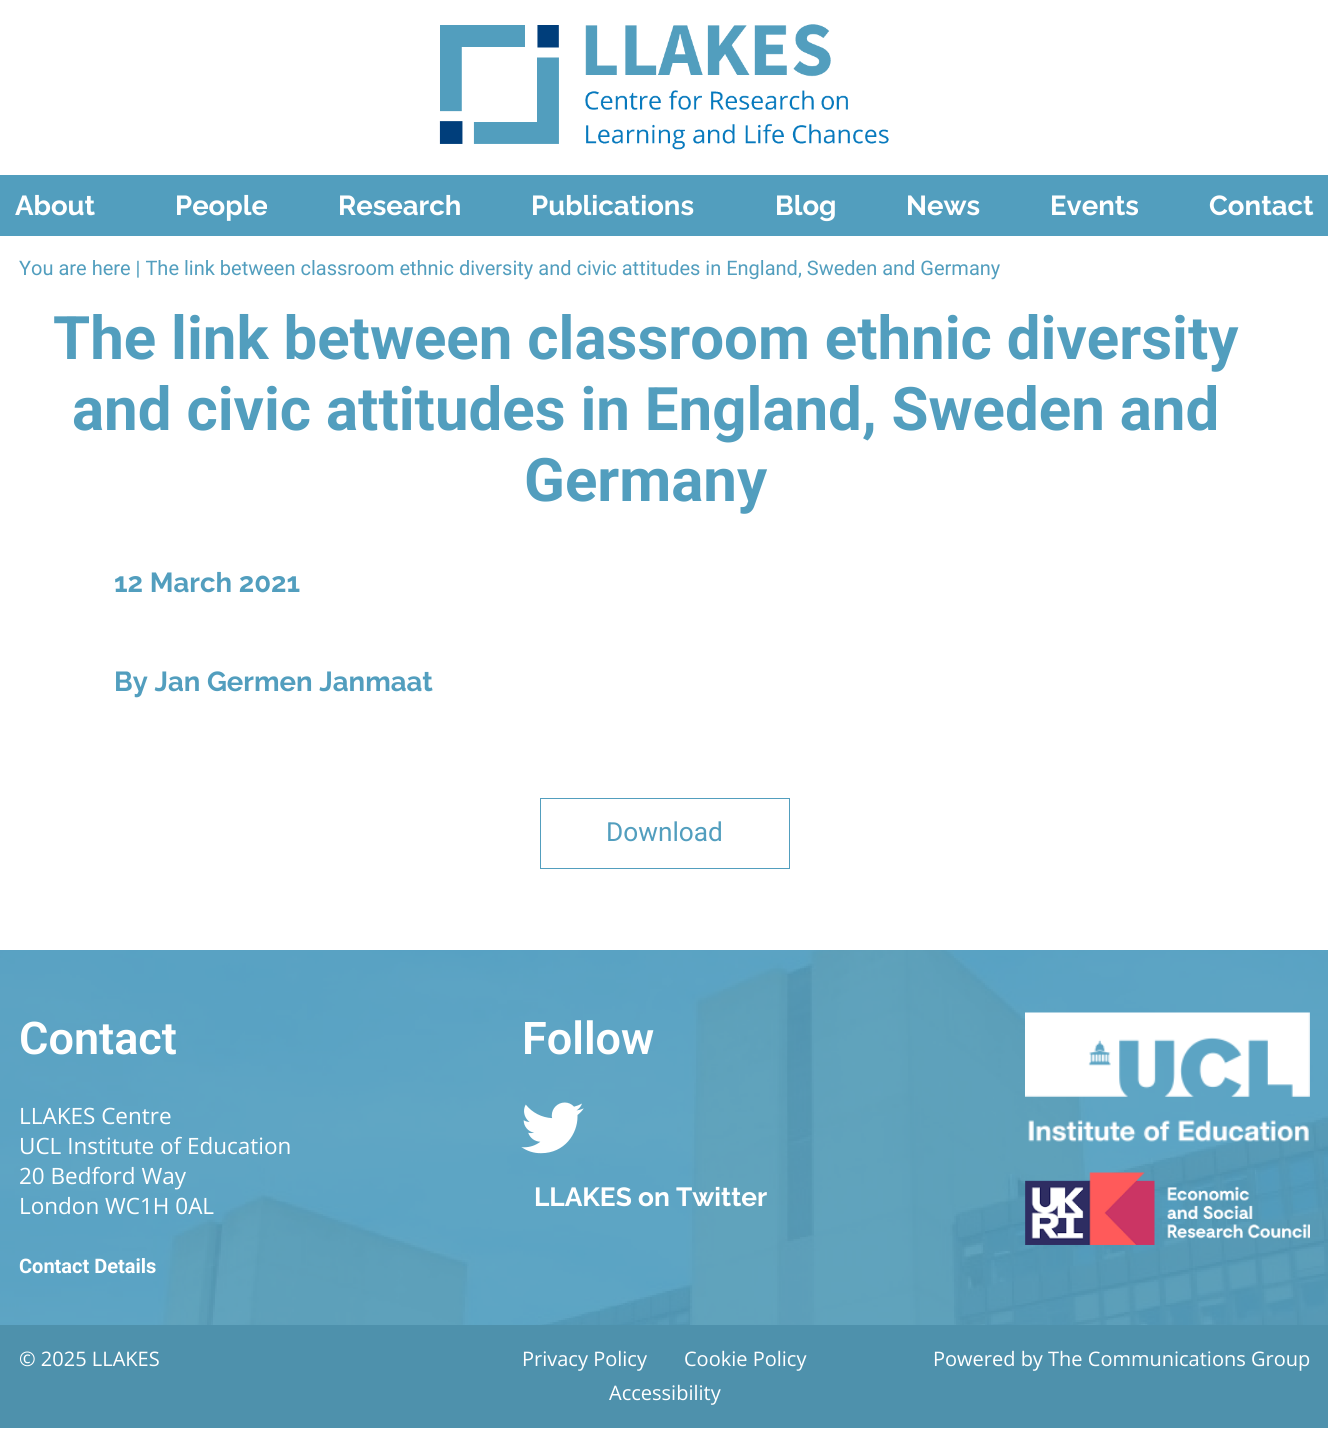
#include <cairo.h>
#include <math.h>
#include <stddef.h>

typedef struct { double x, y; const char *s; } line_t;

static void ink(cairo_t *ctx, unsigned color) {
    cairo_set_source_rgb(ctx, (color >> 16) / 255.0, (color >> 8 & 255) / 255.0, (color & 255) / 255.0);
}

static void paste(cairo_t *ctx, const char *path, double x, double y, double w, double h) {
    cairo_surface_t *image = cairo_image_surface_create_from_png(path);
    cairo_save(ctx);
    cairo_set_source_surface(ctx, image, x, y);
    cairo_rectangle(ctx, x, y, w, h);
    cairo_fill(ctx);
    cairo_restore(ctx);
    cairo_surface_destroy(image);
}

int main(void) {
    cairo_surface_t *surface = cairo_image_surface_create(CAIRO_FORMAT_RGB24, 1328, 1438);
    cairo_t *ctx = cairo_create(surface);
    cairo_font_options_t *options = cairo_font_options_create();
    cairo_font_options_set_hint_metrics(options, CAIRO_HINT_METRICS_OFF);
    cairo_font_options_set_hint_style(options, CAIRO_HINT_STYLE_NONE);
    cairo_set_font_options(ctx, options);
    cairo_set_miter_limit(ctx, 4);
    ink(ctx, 0xFFFFFF);
    cairo_paint(ctx);
    ink(ctx, 0x529EBE);
    cairo_rectangle(ctx, 0, 175, 1328, 61);
    cairo_fill(ctx);
    paste(ctx, "media/1.png", 439, 24, 450, 126);
    cairo_select_font_face(ctx, "Raleway", CAIRO_FONT_SLANT_NORMAL, CAIRO_FONT_WEIGHT_BOLD);
    cairo_set_font_size(ctx, 27.5);
    ink(ctx, 0xFFFFFF);
    {
        static const line_t items[] = {
            {15, 215, "About"},
            {175, 215, "People"},
            {338, 215, "Research"},
            {531, 215, "Publications"},
            {775, 215, "Blog"},
            {906, 215, "News"},
            {1050, 215, "Events"},
            {1209, 215, "Contact"},
        };
        for (size_t i = 0; i < sizeof items / sizeof *items; i++) {
            cairo_move_to(ctx, items[i].x, items[i].y);
            cairo_show_text(ctx, items[i].s);
        }
    }
    cairo_select_font_face(ctx, "Roboto", CAIRO_FONT_SLANT_NORMAL, CAIRO_FONT_WEIGHT_NORMAL);
    cairo_set_font_size(ctx, 20);
    ink(ctx, 0x529EBE);
    cairo_move_to(ctx, 19, 275);
    cairo_show_text(ctx, "You are here | The link between classroom ethnic diversity and civic attitudes in England, Sweden and Germany");
    cairo_select_font_face(ctx, "Roboto", CAIRO_FONT_SLANT_NORMAL, CAIRO_FONT_WEIGHT_BOLD);
    cairo_set_font_size(ctx, 60);
    {
        static const line_t items[] = {
            {53, 359, "The link between classroom ethnic diversity"},
            {72, 430, "and civic attitudes in England, Sweden and"},
            {524, 501, "Germany"},
        };
        for (size_t i = 0; i < sizeof items / sizeof *items; i++) {
            cairo_move_to(ctx, items[i].x, items[i].y);
            cairo_show_text(ctx, items[i].s);
        }
    }
    cairo_select_font_face(ctx, "Raleway", CAIRO_FONT_SLANT_NORMAL, CAIRO_FONT_WEIGHT_BOLD);
    cairo_set_font_size(ctx, 27.5);
    cairo_move_to(ctx, 114, 592);
    cairo_show_text(ctx, "12 March 2021");
    cairo_move_to(ctx, 114, 691);
    cairo_show_text(ctx, "By Jan Germen Janmaat");
    cairo_rectangle(ctx, 540.5, 798.5, 249, 70);
    cairo_set_line_width(ctx, 1);
    cairo_stroke(ctx);
    cairo_select_font_face(ctx, "Roboto", CAIRO_FONT_SLANT_NORMAL, CAIRO_FONT_WEIGHT_NORMAL);
    cairo_set_font_size(ctx, 26.25);
    cairo_move_to(ctx, 606, 841);
    cairo_show_text(ctx, "Download");
    paste(ctx, "media/2.png", 0, 950, 1328, 375);
    cairo_select_font_face(ctx, "Roboto SemiBold", CAIRO_FONT_SLANT_NORMAL, CAIRO_FONT_WEIGHT_NORMAL);
    cairo_set_font_size(ctx, 45);
    ink(ctx, 0xFFFFFF);
    cairo_move_to(ctx, 19, 1054);
    cairo_show_text(ctx, "Contact");
    cairo_select_font_face(ctx, "Open Sans", CAIRO_FONT_SLANT_NORMAL, CAIRO_FONT_WEIGHT_NORMAL);
    cairo_set_font_size(ctx, 22.5);
    {
        static const line_t items[] = {
            {19, 1124, "LLAKES Centre"},
            {19, 1154, "UCL Institute of Education"},
            {19, 1184, "20 Bedford Way"},
            {19, 1214, "London WC1H 0AL"},
        };
        for (size_t i = 0; i < sizeof items / sizeof *items; i++) {
            cairo_move_to(ctx, items[i].x, items[i].y);
            cairo_show_text(ctx, items[i].s);
        }
    }
    cairo_select_font_face(ctx, "Roboto", CAIRO_FONT_SLANT_NORMAL, CAIRO_FONT_WEIGHT_BOLD);
    cairo_set_font_size(ctx, 20);
    cairo_move_to(ctx, 19, 1273);
    cairo_show_text(ctx, "Contact Details");
    cairo_select_font_face(ctx, "Roboto SemiBold", CAIRO_FONT_SLANT_NORMAL, CAIRO_FONT_WEIGHT_NORMAL);
    cairo_set_font_size(ctx, 45);
    cairo_move_to(ctx, 522, 1054);
    cairo_show_text(ctx, "Follow");
    paste(ctx, "media/3.png", 521, 1102, 63, 52);
    cairo_select_font_face(ctx, "Raleway", CAIRO_FONT_SLANT_NORMAL, CAIRO_FONT_WEIGHT_BOLD);
    cairo_set_font_size(ctx, 26.25);
    cairo_move_to(ctx, 534, 1206);
    cairo_show_text(ctx, "LLAKES on Twitter");
    paste(ctx, "media/4.png", 1025, 1012, 285, 130);
    paste(ctx, "media/5.png", 1025, 1172, 285, 73);
    ink(ctx, 0x4E91AC);
    cairo_rectangle(ctx, 0, 1325, 1328, 103);
    cairo_fill(ctx);
    cairo_select_font_face(ctx, "Open Sans", CAIRO_FONT_SLANT_NORMAL, CAIRO_FONT_WEIGHT_NORMAL);
    cairo_set_font_size(ctx, 20);
    ink(ctx, 0xFFFFFF);
    {
        static const line_t items[] = {
            {19, 1366, "© 2025 LLAKES"},
            {522, 1366, "Privacy Policy"},
            {684, 1366, "Cookie Policy"},
            {609, 1400, "Accessibility"},
            {933, 1366, "Powered by The Communications Group"},
        };
        for (size_t i = 0; i < sizeof items / sizeof *items; i++) {
            cairo_move_to(ctx, items[i].x, items[i].y);
            cairo_show_text(ctx, items[i].s);
        }
    }
    cairo_surface_write_to_png(surface, "image.png");
    cairo_font_options_destroy(options);
    cairo_destroy(ctx);
    cairo_surface_destroy(surface);
    return 0;
}
